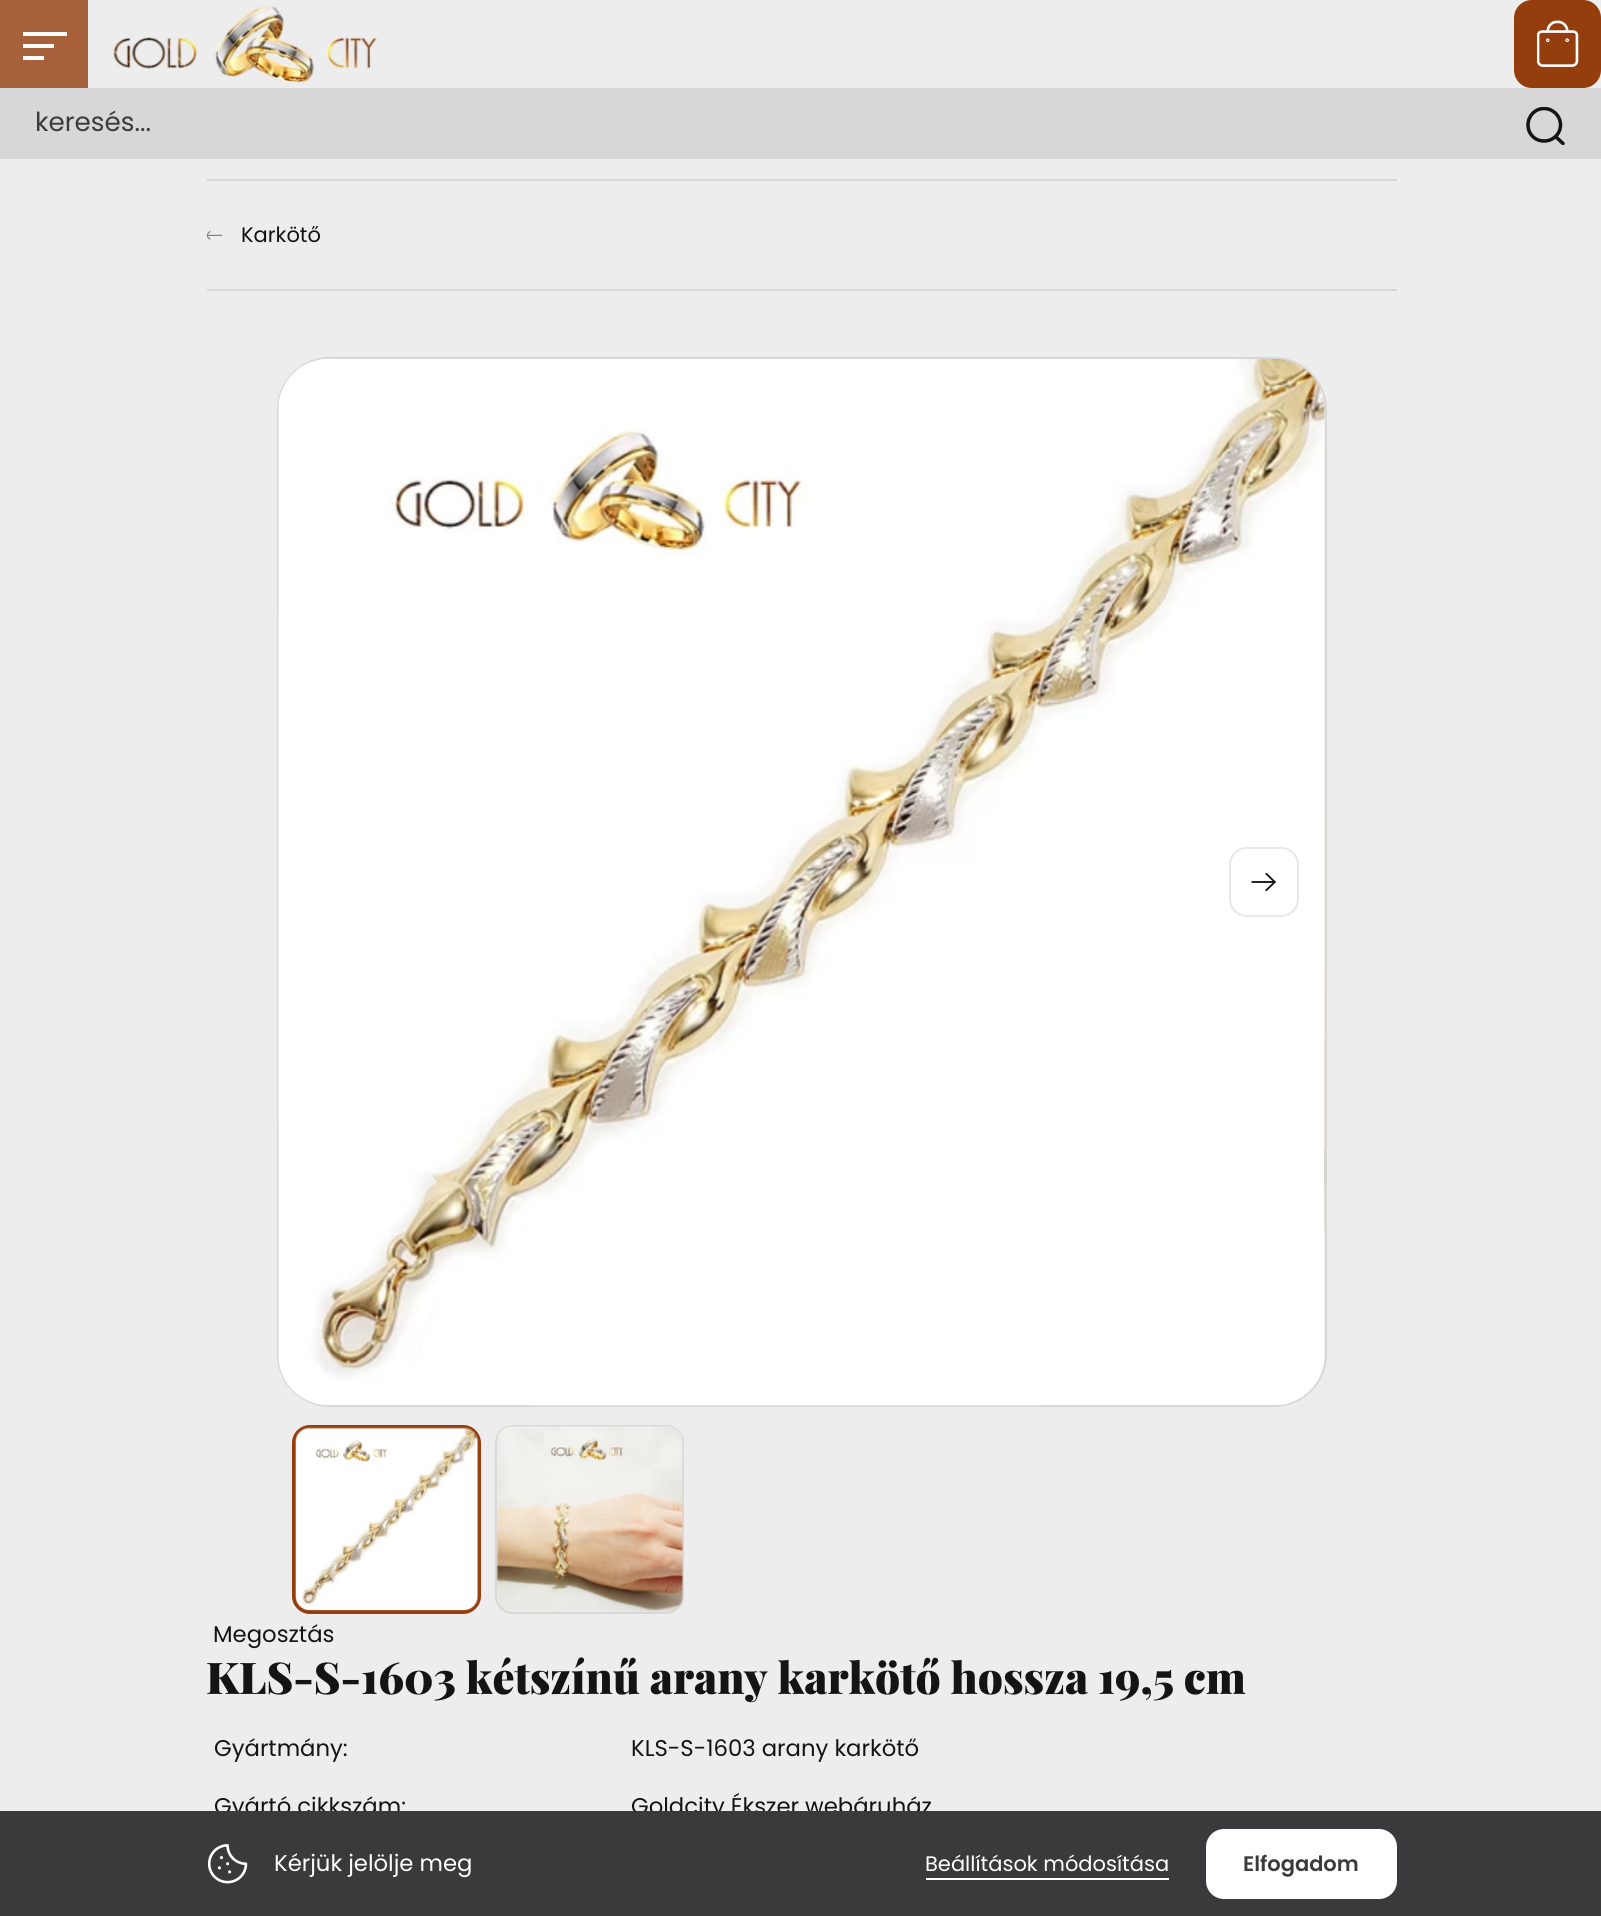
#include <cairo.h>
#include <math.h>
#include <stddef.h>

typedef struct { double x, y; const char *s; } line_t;
typedef struct { double x, y, w, h; unsigned color; } box_t;

static void ink(cairo_t *ctx, unsigned color) {
    cairo_set_source_rgb(ctx, (color >> 16) / 255.0, (color >> 8 & 255) / 255.0, (color & 255) / 255.0);
}

static void round_path(cairo_t *ctx, double x, double y, double w, double h, double r) {
    cairo_new_sub_path(ctx);
    cairo_arc(ctx, x + w - r, y + h - r, r, 0, M_PI / 2);
    cairo_arc(ctx, x + r, y + h - r, r, M_PI / 2, M_PI);
    cairo_arc(ctx, x + r, y + r, r, M_PI, 1.5 * M_PI);
    cairo_arc(ctx, x + w - r, y + r, r, 1.5 * M_PI, 2 * M_PI);
    cairo_close_path(ctx);
}

static void paste(cairo_t *ctx, const char *path, double x, double y, double w, double h) {
    cairo_surface_t *image = cairo_image_surface_create_from_png(path);
    cairo_save(ctx);
    cairo_set_source_surface(ctx, image, x, y);
    cairo_rectangle(ctx, x, y, w, h);
    cairo_fill(ctx);
    cairo_restore(ctx);
    cairo_surface_destroy(image);
}

int main(void) {
    cairo_surface_t *surface = cairo_image_surface_create(CAIRO_FORMAT_RGB24, 1601, 1916);
    cairo_t *ctx = cairo_create(surface);
    cairo_font_options_t *options = cairo_font_options_create();
    cairo_font_options_set_hint_metrics(options, CAIRO_HINT_METRICS_OFF);
    cairo_font_options_set_hint_style(options, CAIRO_HINT_STYLE_NONE);
    cairo_set_font_options(ctx, options);
    cairo_set_miter_limit(ctx, 4);
    ink(ctx, 0xEDEDED);
    cairo_paint(ctx);
    {
        static const box_t items[] = {
            {0, 0, 88, 88, 0xA6613A},
            {23, 32, 44, 4, 0xFBFBFB},
            {23, 44, 31, 4, 0xFBFBFB},
            {23, 56, 21, 4, 0xFBFBFB},
        };
        for (size_t i = 0; i < sizeof items / sizeof *items; i++) {
            ink(ctx, items[i].color);
            cairo_rectangle(ctx, items[i].x, items[i].y, items[i].w, items[i].h);
            cairo_fill(ctx);
        }
    }
    paste(ctx, "media/1.png", 113, 5, 264, 79);
    ink(ctx, 0x943E0D);
    round_path(ctx, 1515, 1, 85, 86, 17);
    cairo_fill_preserve(ctx);
    cairo_stroke(ctx);
    paste(ctx, "media/2.png", 1537, 20, 42, 47);
    ink(ctx, 0xD7D7D7);
    cairo_rectangle(ctx, 0, 88, 1601, 71);
    cairo_fill(ctx);
    cairo_select_font_face(ctx, "Poppins", CAIRO_FONT_SLANT_NORMAL, CAIRO_FONT_WEIGHT_NORMAL);
    cairo_set_font_size(ctx, 26.25);
    ink(ctx, 0x3B3B3B);
    cairo_move_to(ctx, 35, 131);
    cairo_show_text(ctx, "keresés...");
    cairo_save(ctx);
    cairo_rectangle(ctx, 1526, 107, 39, 38);
    cairo_clip(ctx);
    cairo_new_path(ctx);
    cairo_move_to(ctx, 1563, 143.5);
    cairo_line_to(ctx, 1555.5, 136.5);
    cairo_move_to(ctx, 1544, 141);
    cairo_curve_to(ctx, 1535, 141, 1528, 134, 1528, 125);
    cairo_curve_to(ctx, 1528, 116, 1535, 108.5, 1544, 108.5);
    cairo_curve_to(ctx, 1553, 108.5, 1560.5, 116, 1560.5, 125);
    cairo_curve_to(ctx, 1560.5, 134, 1553, 141, 1544, 141);
    cairo_close_path(ctx);
    ink(ctx, 0x141414);
    cairo_set_line_width(ctx, 3.5);
    cairo_set_line_cap(ctx, CAIRO_LINE_CAP_ROUND);
    cairo_set_line_join(ctx, CAIRO_LINE_JOIN_ROUND);
    cairo_stroke(ctx);
    cairo_restore(ctx);
    ink(ctx, 0xD7D7D7);
    cairo_rectangle(ctx, 207, 179, 1190, 2);
    cairo_fill(ctx);
    cairo_rectangle(ctx, 207, 289, 1190, 2);
    cairo_fill(ctx);
    paste(ctx, "media/3.png", 207, 231, 16, 9);
    cairo_set_font_size(ctx, 21);
    ink(ctx, 0x141414);
    cairo_move_to(ctx, 241, 242);
    cairo_show_text(ctx, "Karkötő");
    round_path(ctx, 278, 358, 1048, 1048, 52);
    ink(ctx, 0xD7D7D7);
    cairo_stroke(ctx);
    paste(ctx, "media/4.png", 278, 359, 1047, 1047);
    paste(ctx, "media/5.png", 1324, 406, 1, 949);
    round_path(ctx, 1230, 848, 68, 68, 17);
    ink(ctx, 0xE8E8E8);
    cairo_stroke(ctx);
    paste(ctx, "media/6.png", 1251, 872, 25, 20);
    round_path(ctx, 294, 1427, 185, 185, 16);
    ink(ctx, 0x943E0D);
    cairo_set_line_width(ctx, 4);
    cairo_stroke(ctx);
    paste(ctx, "media/7.png", 295, 1427, 184, 184);
    round_path(ctx, 496, 1426, 187, 187, 17);
    ink(ctx, 0xD7D7D7);
    cairo_set_line_width(ctx, 2);
    cairo_stroke(ctx);
    paste(ctx, "media/8.png", 496, 1426, 187, 186);
    cairo_set_font_size(ctx, 22.75);
    ink(ctx, 0x141414);
    cairo_move_to(ctx, 213, 1642);
    cairo_show_text(ctx, "Megosztás");
    cairo_select_font_face(ctx, "Playfair Display Black", CAIRO_FONT_SLANT_NORMAL, CAIRO_FONT_WEIGHT_NORMAL);
    cairo_set_font_size(ctx, 43.75);
    cairo_move_to(ctx, 206, 1694);
    cairo_show_text(ctx, "KLS-S-1603 kétszínű arany karkötő hossza 19,5 cm");
    cairo_select_font_face(ctx, "Poppins", CAIRO_FONT_SLANT_NORMAL, CAIRO_FONT_WEIGHT_NORMAL);
    cairo_set_font_size(ctx, 22.75);
    {
        static const line_t items[] = {
            {214, 1756, "Gyártmány:"},
            {631, 1756, "KLS-S-1603 arany karkötő"},
            {214, 1814, "Gyártó cikkszám:"},
            {631, 1814, "Goldcity Ékszer webáruház"},
        };
        for (size_t i = 0; i < sizeof items / sizeof *items; i++) {
            cairo_move_to(ctx, items[i].x, items[i].y);
            cairo_show_text(ctx, items[i].s);
        }
    }
    ink(ctx, 0x3A393B);
    cairo_rectangle(ctx, 0, 1811, 1601, 105);
    cairo_fill(ctx);
    paste(ctx, "media/9.png", 207, 1844, 41, 40);
    ink(ctx, 0xFFFFFF);
    cairo_move_to(ctx, 274, 1871);
    cairo_show_text(ctx, "Kérjük jelölje meg");
    cairo_set_font_size(ctx, 21);
    cairo_move_to(ctx, 925, 1871);
    cairo_show_text(ctx, "Beállítások módosítása");
    cairo_rectangle(ctx, 926, 1878, 243, 2);
    cairo_fill(ctx);
    round_path(ctx, 1207, 1830, 189, 68, 17);
    cairo_fill_preserve(ctx);
    cairo_stroke(ctx);
    cairo_select_font_face(ctx, "Poppins SemiBold", CAIRO_FONT_SLANT_NORMAL, CAIRO_FONT_WEIGHT_NORMAL);
    ink(ctx, 0x3B3B3B);
    cairo_move_to(ctx, 1243, 1871);
    cairo_show_text(ctx, "Elfogadom");
    cairo_surface_write_to_png(surface, "image.png");
    cairo_font_options_destroy(options);
    cairo_destroy(ctx);
    cairo_surface_destroy(surface);
    return 0;
}
